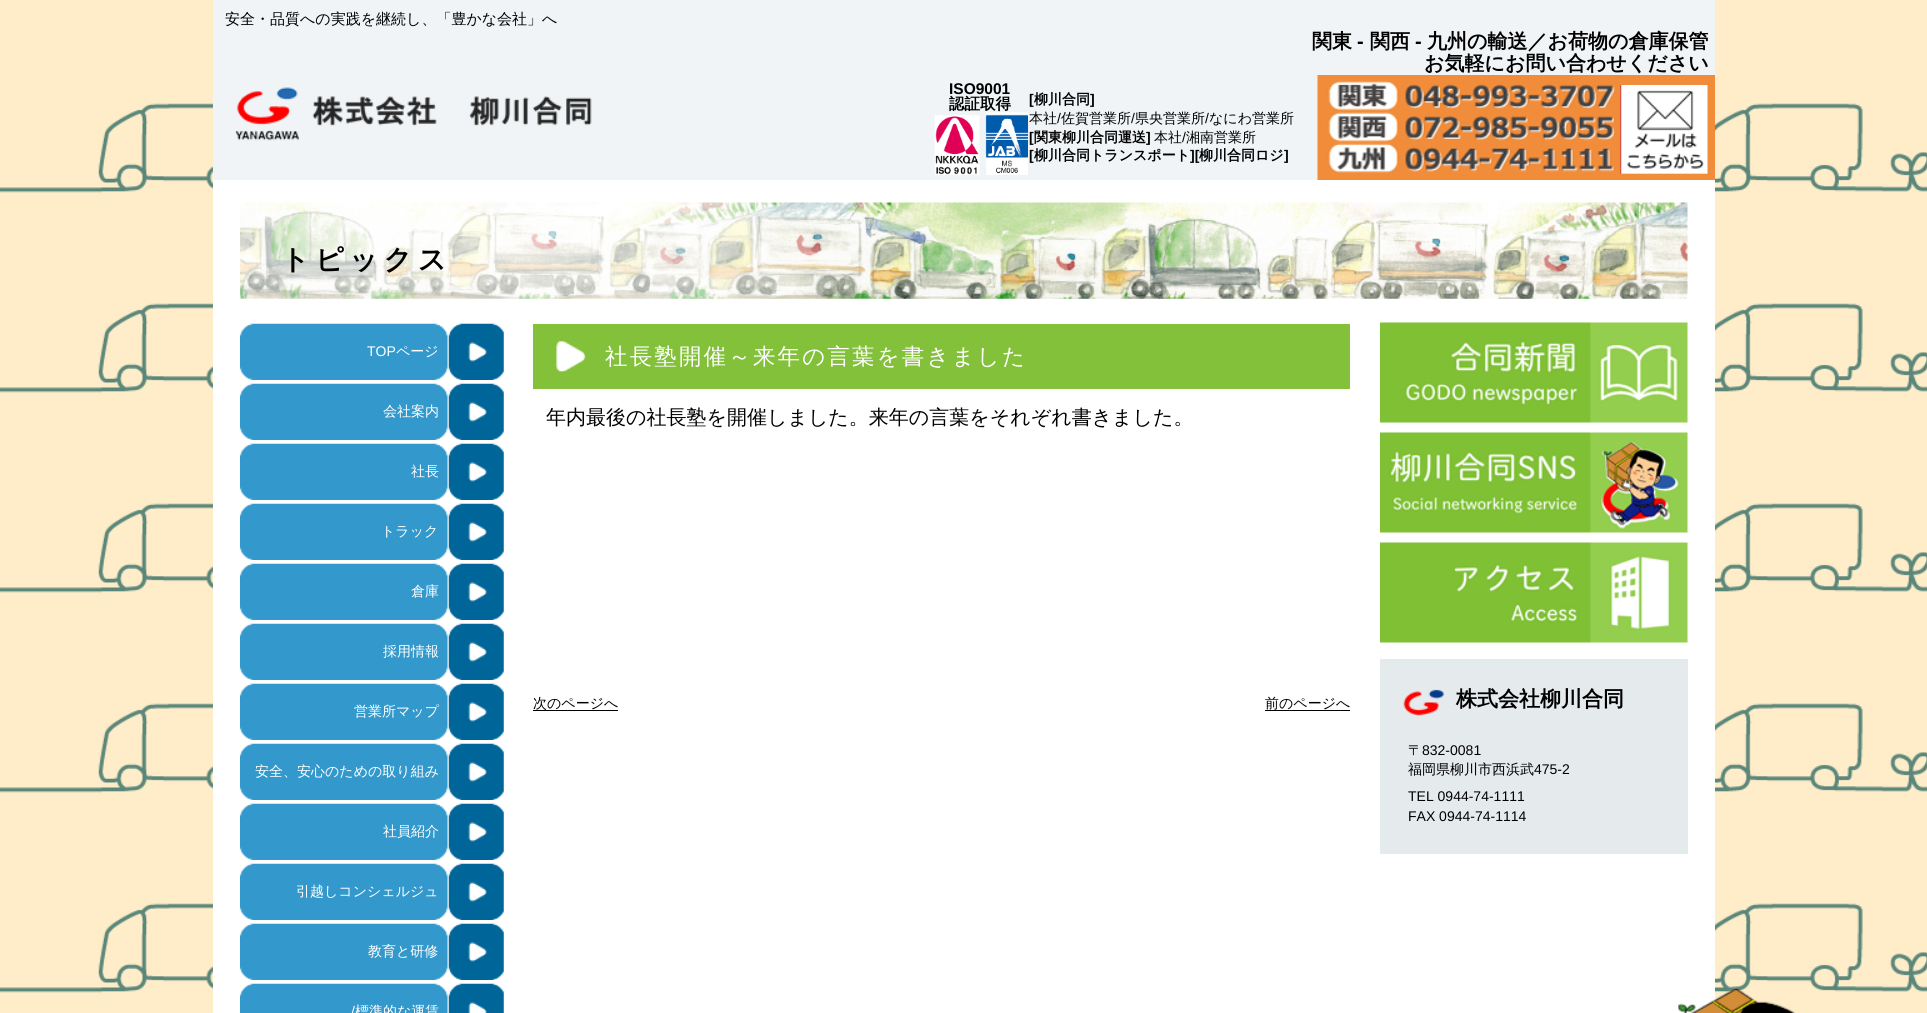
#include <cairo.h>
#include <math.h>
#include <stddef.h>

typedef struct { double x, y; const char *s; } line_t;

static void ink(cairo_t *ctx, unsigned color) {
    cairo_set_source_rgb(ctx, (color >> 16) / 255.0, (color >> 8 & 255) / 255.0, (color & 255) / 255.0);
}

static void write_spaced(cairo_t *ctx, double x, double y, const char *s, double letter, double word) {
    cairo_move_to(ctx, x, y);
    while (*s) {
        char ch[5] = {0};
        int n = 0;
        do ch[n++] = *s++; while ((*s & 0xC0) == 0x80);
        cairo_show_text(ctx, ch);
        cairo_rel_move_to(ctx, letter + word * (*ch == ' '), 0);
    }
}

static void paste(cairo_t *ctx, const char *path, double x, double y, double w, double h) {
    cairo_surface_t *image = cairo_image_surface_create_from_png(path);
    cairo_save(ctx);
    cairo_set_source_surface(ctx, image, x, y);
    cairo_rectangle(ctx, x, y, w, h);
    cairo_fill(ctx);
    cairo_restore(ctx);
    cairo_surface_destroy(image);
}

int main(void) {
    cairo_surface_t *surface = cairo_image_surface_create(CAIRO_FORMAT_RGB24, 1927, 1013);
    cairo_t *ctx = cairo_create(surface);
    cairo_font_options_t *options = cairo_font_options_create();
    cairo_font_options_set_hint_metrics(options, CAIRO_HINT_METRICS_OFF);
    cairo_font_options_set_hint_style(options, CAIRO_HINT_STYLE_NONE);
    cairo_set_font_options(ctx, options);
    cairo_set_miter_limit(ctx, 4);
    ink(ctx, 0xFFFFFF);
    cairo_paint(ctx);
    paste(ctx, "media/1.png", 0, 0, 1927, 1013);
    ink(ctx, 0xFFFFFF);
    cairo_rectangle(ctx, 213, 180, 1502, 833);
    cairo_fill(ctx);
    ink(ctx, 0xF0F4F6);
    cairo_rectangle(ctx, 213, 0, 1502, 180);
    cairo_fill(ctx);
    cairo_select_font_face(ctx, "WenQuanYi Zen Hei Medium", CAIRO_FONT_SLANT_NORMAL, CAIRO_FONT_WEIGHT_NORMAL);
    cairo_set_font_size(ctx, 15);
    ink(ctx, 0x000000);
    cairo_move_to(ctx, 225, 24);
    cairo_show_text(ctx, "安全・品質への実践を継続し、「豊かな会社」へ");
    cairo_select_font_face(ctx, "WenQuanYi Zen Hei", CAIRO_FONT_SLANT_NORMAL, CAIRO_FONT_WEIGHT_BOLD);
    cairo_set_font_size(ctx, 20);
    cairo_move_to(ctx, 1312, 48);
    cairo_show_text(ctx, "関東");
    cairo_select_font_face(ctx, "Liberation Sans", CAIRO_FONT_SLANT_NORMAL, CAIRO_FONT_WEIGHT_BOLD);
    cairo_move_to(ctx, 1357, 48);
    cairo_show_text(ctx, "-");
    cairo_select_font_face(ctx, "WenQuanYi Zen Hei", CAIRO_FONT_SLANT_NORMAL, CAIRO_FONT_WEIGHT_BOLD);
    cairo_move_to(ctx, 1370, 48);
    cairo_show_text(ctx, "関西");
    cairo_select_font_face(ctx, "Liberation Sans", CAIRO_FONT_SLANT_NORMAL, CAIRO_FONT_WEIGHT_BOLD);
    cairo_move_to(ctx, 1415, 48);
    cairo_show_text(ctx, "-");
    cairo_select_font_face(ctx, "WenQuanYi Zen Hei", CAIRO_FONT_SLANT_NORMAL, CAIRO_FONT_WEIGHT_BOLD);
    cairo_move_to(ctx, 1427, 48);
    cairo_show_text(ctx, "九州の輸送／お荷物の倉庫保管");
    cairo_move_to(ctx, 1424, 70);
    cairo_show_text(ctx, "お気軽にお問い合わせください");
    paste(ctx, "media/2.png", 235, 87, 357, 54);
    cairo_select_font_face(ctx, "Liberation Sans", CAIRO_FONT_SLANT_NORMAL, CAIRO_FONT_WEIGHT_BOLD);
    cairo_set_font_size(ctx, 15.5);
    cairo_move_to(ctx, 949, 94);
    cairo_show_text(ctx, "ISO9001");
    cairo_select_font_face(ctx, "WenQuanYi Zen Hei", CAIRO_FONT_SLANT_NORMAL, CAIRO_FONT_WEIGHT_BOLD);
    cairo_move_to(ctx, 949, 109);
    cairo_show_text(ctx, "認証取得");
    paste(ctx, "media/3.png", 934, 112, 94, 63);
    cairo_select_font_face(ctx, "Liberation Sans", CAIRO_FONT_SLANT_NORMAL, CAIRO_FONT_WEIGHT_BOLD);
    cairo_set_font_size(ctx, 14);
    cairo_move_to(ctx, 1029, 104);
    cairo_show_text(ctx, "[");
    cairo_select_font_face(ctx, "WenQuanYi Zen Hei", CAIRO_FONT_SLANT_NORMAL, CAIRO_FONT_WEIGHT_BOLD);
    cairo_move_to(ctx, 1034, 104);
    cairo_show_text(ctx, "柳川合同");
    cairo_select_font_face(ctx, "Liberation Sans", CAIRO_FONT_SLANT_NORMAL, CAIRO_FONT_WEIGHT_BOLD);
    cairo_move_to(ctx, 1090, 104);
    cairo_show_text(ctx, "]");
    cairo_select_font_face(ctx, "WenQuanYi Zen Hei Medium", CAIRO_FONT_SLANT_NORMAL, CAIRO_FONT_WEIGHT_NORMAL);
    cairo_move_to(ctx, 1029, 123);
    cairo_show_text(ctx, "本社");
    cairo_select_font_face(ctx, "Liberation Sans", CAIRO_FONT_SLANT_NORMAL, CAIRO_FONT_WEIGHT_NORMAL);
    cairo_move_to(ctx, 1057, 123);
    cairo_show_text(ctx, "/");
    cairo_select_font_face(ctx, "WenQuanYi Zen Hei Medium", CAIRO_FONT_SLANT_NORMAL, CAIRO_FONT_WEIGHT_NORMAL);
    cairo_move_to(ctx, 1061, 123);
    cairo_show_text(ctx, "佐賀営業所");
    cairo_select_font_face(ctx, "Liberation Sans", CAIRO_FONT_SLANT_NORMAL, CAIRO_FONT_WEIGHT_NORMAL);
    cairo_move_to(ctx, 1131, 123);
    cairo_show_text(ctx, "/");
    cairo_select_font_face(ctx, "WenQuanYi Zen Hei Medium", CAIRO_FONT_SLANT_NORMAL, CAIRO_FONT_WEIGHT_NORMAL);
    cairo_move_to(ctx, 1135, 123);
    cairo_show_text(ctx, "県央営業所");
    cairo_select_font_face(ctx, "Liberation Sans", CAIRO_FONT_SLANT_NORMAL, CAIRO_FONT_WEIGHT_NORMAL);
    cairo_move_to(ctx, 1205, 123);
    cairo_show_text(ctx, "/");
    cairo_select_font_face(ctx, "WenQuanYi Zen Hei Medium", CAIRO_FONT_SLANT_NORMAL, CAIRO_FONT_WEIGHT_NORMAL);
    cairo_move_to(ctx, 1209, 123);
    cairo_show_text(ctx, "なにわ営業所");
    cairo_select_font_face(ctx, "Liberation Sans", CAIRO_FONT_SLANT_NORMAL, CAIRO_FONT_WEIGHT_BOLD);
    cairo_move_to(ctx, 1029, 142);
    cairo_show_text(ctx, "[");
    cairo_select_font_face(ctx, "WenQuanYi Zen Hei", CAIRO_FONT_SLANT_NORMAL, CAIRO_FONT_WEIGHT_BOLD);
    cairo_move_to(ctx, 1034, 142);
    cairo_show_text(ctx, "関東柳川合同運送");
    cairo_select_font_face(ctx, "Liberation Sans", CAIRO_FONT_SLANT_NORMAL, CAIRO_FONT_WEIGHT_BOLD);
    cairo_move_to(ctx, 1146, 142);
    cairo_show_text(ctx, "]");
    cairo_select_font_face(ctx, "WenQuanYi Zen Hei Medium", CAIRO_FONT_SLANT_NORMAL, CAIRO_FONT_WEIGHT_NORMAL);
    cairo_move_to(ctx, 1154, 142);
    cairo_show_text(ctx, "本社");
    cairo_select_font_face(ctx, "Liberation Sans", CAIRO_FONT_SLANT_NORMAL, CAIRO_FONT_WEIGHT_NORMAL);
    cairo_move_to(ctx, 1182, 142);
    cairo_show_text(ctx, "/");
    cairo_select_font_face(ctx, "WenQuanYi Zen Hei Medium", CAIRO_FONT_SLANT_NORMAL, CAIRO_FONT_WEIGHT_NORMAL);
    cairo_move_to(ctx, 1186, 142);
    cairo_show_text(ctx, "湘南営業所");
    cairo_select_font_face(ctx, "Liberation Sans", CAIRO_FONT_SLANT_NORMAL, CAIRO_FONT_WEIGHT_BOLD);
    cairo_move_to(ctx, 1029, 160);
    cairo_show_text(ctx, "[");
    cairo_select_font_face(ctx, "WenQuanYi Zen Hei", CAIRO_FONT_SLANT_NORMAL, CAIRO_FONT_WEIGHT_BOLD);
    cairo_move_to(ctx, 1034, 160);
    cairo_show_text(ctx, "柳川合同トランスポート");
    cairo_select_font_face(ctx, "Liberation Sans", CAIRO_FONT_SLANT_NORMAL, CAIRO_FONT_WEIGHT_BOLD);
    cairo_move_to(ctx, 1190, 160);
    cairo_show_text(ctx, "][");
    cairo_select_font_face(ctx, "WenQuanYi Zen Hei", CAIRO_FONT_SLANT_NORMAL, CAIRO_FONT_WEIGHT_BOLD);
    cairo_move_to(ctx, 1199, 160);
    cairo_show_text(ctx, "柳川合同ロジ");
    cairo_select_font_face(ctx, "Liberation Sans", CAIRO_FONT_SLANT_NORMAL, CAIRO_FONT_WEIGHT_BOLD);
    cairo_move_to(ctx, 1284, 160);
    cairo_show_text(ctx, "]");
    paste(ctx, "media/4.png", 1317, 75, 398, 105);
    paste(ctx, "media/5.png", 1620, 85, 87, 89);
    paste(ctx, "media/6.png", 1621, 85, 87, 89);
    paste(ctx, "media/7.png", 240, 202, 1448, 97);
    cairo_select_font_face(ctx, "WenQuanYi Zen Hei", CAIRO_FONT_SLANT_NORMAL, CAIRO_FONT_WEIGHT_BOLD);
    cairo_set_font_size(ctx, 28);
    write_spaced(ctx, 281, 269, "トピックス", 5.5, 0);
    ink(ctx, 0x82C139);
    cairo_rectangle(ctx, 533, 324, 817, 65);
    cairo_fill(ctx);
    paste(ctx, "media/8.png", 556, 341, 30, 31);
    cairo_select_font_face(ctx, "WenQuanYi Zen Hei Medium", CAIRO_FONT_SLANT_NORMAL, CAIRO_FONT_WEIGHT_NORMAL);
    cairo_set_font_size(ctx, 22.4);
    ink(ctx, 0xFFFFFF);
    write_spaced(ctx, 605, 364, "社長塾開催～来年の言葉を書きました", 2.25, 0);
    cairo_set_font_size(ctx, 20);
    ink(ctx, 0x000000);
    cairo_move_to(ctx, 546, 424);
    cairo_show_text(ctx, "年内最後の社長塾を開催しました。来年の言葉をそれぞれ書きました。");
    cairo_rectangle(ctx, 533, 710, 85, 1);
    cairo_fill(ctx);
    cairo_set_font_size(ctx, 14);
    cairo_move_to(ctx, 533, 708);
    cairo_show_text(ctx, "次のページへ");
    cairo_move_to(ctx, 1265, 708);
    cairo_show_text(ctx, "前のページへ");
    cairo_rectangle(ctx, 1265, 710, 85, 1);
    cairo_fill(ctx);
    paste(ctx, "media/9.png", 240, 323, 264, 57);
    cairo_select_font_face(ctx, "Liberation Sans", CAIRO_FONT_SLANT_NORMAL, CAIRO_FONT_WEIGHT_NORMAL);
    ink(ctx, 0xFFFFFF);
    cairo_move_to(ctx, 367, 356);
    cairo_show_text(ctx, "TOP");
    cairo_select_font_face(ctx, "WenQuanYi Zen Hei Medium", CAIRO_FONT_SLANT_NORMAL, CAIRO_FONT_WEIGHT_NORMAL);
    cairo_move_to(ctx, 396, 356);
    cairo_show_text(ctx, "ページ");
    paste(ctx, "media/9.png", 240, 383, 264, 57);
    cairo_move_to(ctx, 383, 416);
    cairo_show_text(ctx, "会社案内");
    paste(ctx, "media/9.png", 240, 443, 264, 57);
    cairo_move_to(ctx, 411, 476);
    cairo_show_text(ctx, "社長");
    paste(ctx, "media/9.png", 240, 503, 264, 57);
    cairo_move_to(ctx, 381, 536);
    cairo_show_text(ctx, "トラック");
    paste(ctx, "media/10.png", 240, 563, 264, 57);
    cairo_move_to(ctx, 411, 596);
    cairo_show_text(ctx, "倉庫");
    paste(ctx, "media/9.png", 240, 623, 264, 57);
    cairo_move_to(ctx, 383, 656);
    cairo_show_text(ctx, "採用情報");
    paste(ctx, "media/9.png", 240, 683, 264, 57);
    cairo_move_to(ctx, 354, 716);
    cairo_show_text(ctx, "営業所マップ");
    paste(ctx, "media/9.png", 240, 743, 264, 57);
    cairo_move_to(ctx, 255, 776);
    cairo_show_text(ctx, "安全、安心のための取り組み");
    paste(ctx, "media/9.png", 240, 803, 264, 57);
    cairo_move_to(ctx, 383, 836);
    cairo_show_text(ctx, "社員紹介");
    paste(ctx, "media/9.png", 240, 863, 264, 57);
    cairo_move_to(ctx, 296, 896);
    cairo_show_text(ctx, "引越しコンシェルジュ");
    paste(ctx, "media/9.png", 240, 923, 264, 57);
    cairo_move_to(ctx, 368, 956);
    cairo_show_text(ctx, "教育と研修");
    paste(ctx, "media/11.png", 240, 983, 264, 30);
    cairo_select_font_face(ctx, "Liberation Sans", CAIRO_FONT_SLANT_NORMAL, CAIRO_FONT_WEIGHT_NORMAL);
    cairo_move_to(ctx, 351, 1016);
    cairo_show_text(ctx, "/");
    cairo_select_font_face(ctx, "WenQuanYi Zen Hei Medium", CAIRO_FONT_SLANT_NORMAL, CAIRO_FONT_WEIGHT_NORMAL);
    cairo_move_to(ctx, 355, 1016);
    cairo_show_text(ctx, "標準的な運賃");
    paste(ctx, "media/12.png", 1380, 322, 308, 101);
    paste(ctx, "media/13.png", 1380, 432, 308, 101);
    paste(ctx, "media/14.png", 1380, 542, 308, 101);
    ink(ctx, 0xE5EAED);
    cairo_rectangle(ctx, 1380, 659, 308, 195);
    cairo_fill(ctx);
    paste(ctx, "media/15.png", 1403, 689, 41, 27);
    cairo_select_font_face(ctx, "WenQuanYi Zen Hei", CAIRO_FONT_SLANT_NORMAL, CAIRO_FONT_WEIGHT_BOLD);
    cairo_set_font_size(ctx, 21);
    ink(ctx, 0x000000);
    cairo_move_to(ctx, 1456, 706);
    cairo_show_text(ctx, "株式会社柳川合同");
    cairo_select_font_face(ctx, "WenQuanYi Zen Hei Medium", CAIRO_FONT_SLANT_NORMAL, CAIRO_FONT_WEIGHT_NORMAL);
    cairo_set_font_size(ctx, 14);
    cairo_move_to(ctx, 1408, 755);
    cairo_show_text(ctx, "〒");
    cairo_select_font_face(ctx, "Liberation Sans", CAIRO_FONT_SLANT_NORMAL, CAIRO_FONT_WEIGHT_NORMAL);
    cairo_move_to(ctx, 1422, 755);
    cairo_show_text(ctx, "832-0081");
    cairo_select_font_face(ctx, "WenQuanYi Zen Hei Medium", CAIRO_FONT_SLANT_NORMAL, CAIRO_FONT_WEIGHT_NORMAL);
    cairo_move_to(ctx, 1408, 774);
    cairo_show_text(ctx, "福岡県柳川市西浜武");
    cairo_select_font_face(ctx, "Liberation Sans", CAIRO_FONT_SLANT_NORMAL, CAIRO_FONT_WEIGHT_NORMAL);
    {
        static const line_t items[] = {
            {1534, 774, "475-2"},
            {1408, 801, "TEL 0944-74-1111"},
            {1408, 821, "FAX 0944-74-1114"},
        };
        for (size_t i = 0; i < sizeof items / sizeof *items; i++) {
            cairo_move_to(ctx, items[i].x, items[i].y);
            cairo_show_text(ctx, items[i].s);
        }
    }
    paste(ctx, "media/16.png", 1678, 989, 118, 24);
    cairo_surface_write_to_png(surface, "image.png");
    cairo_font_options_destroy(options);
    cairo_destroy(ctx);
    cairo_surface_destroy(surface);
    return 0;
}
